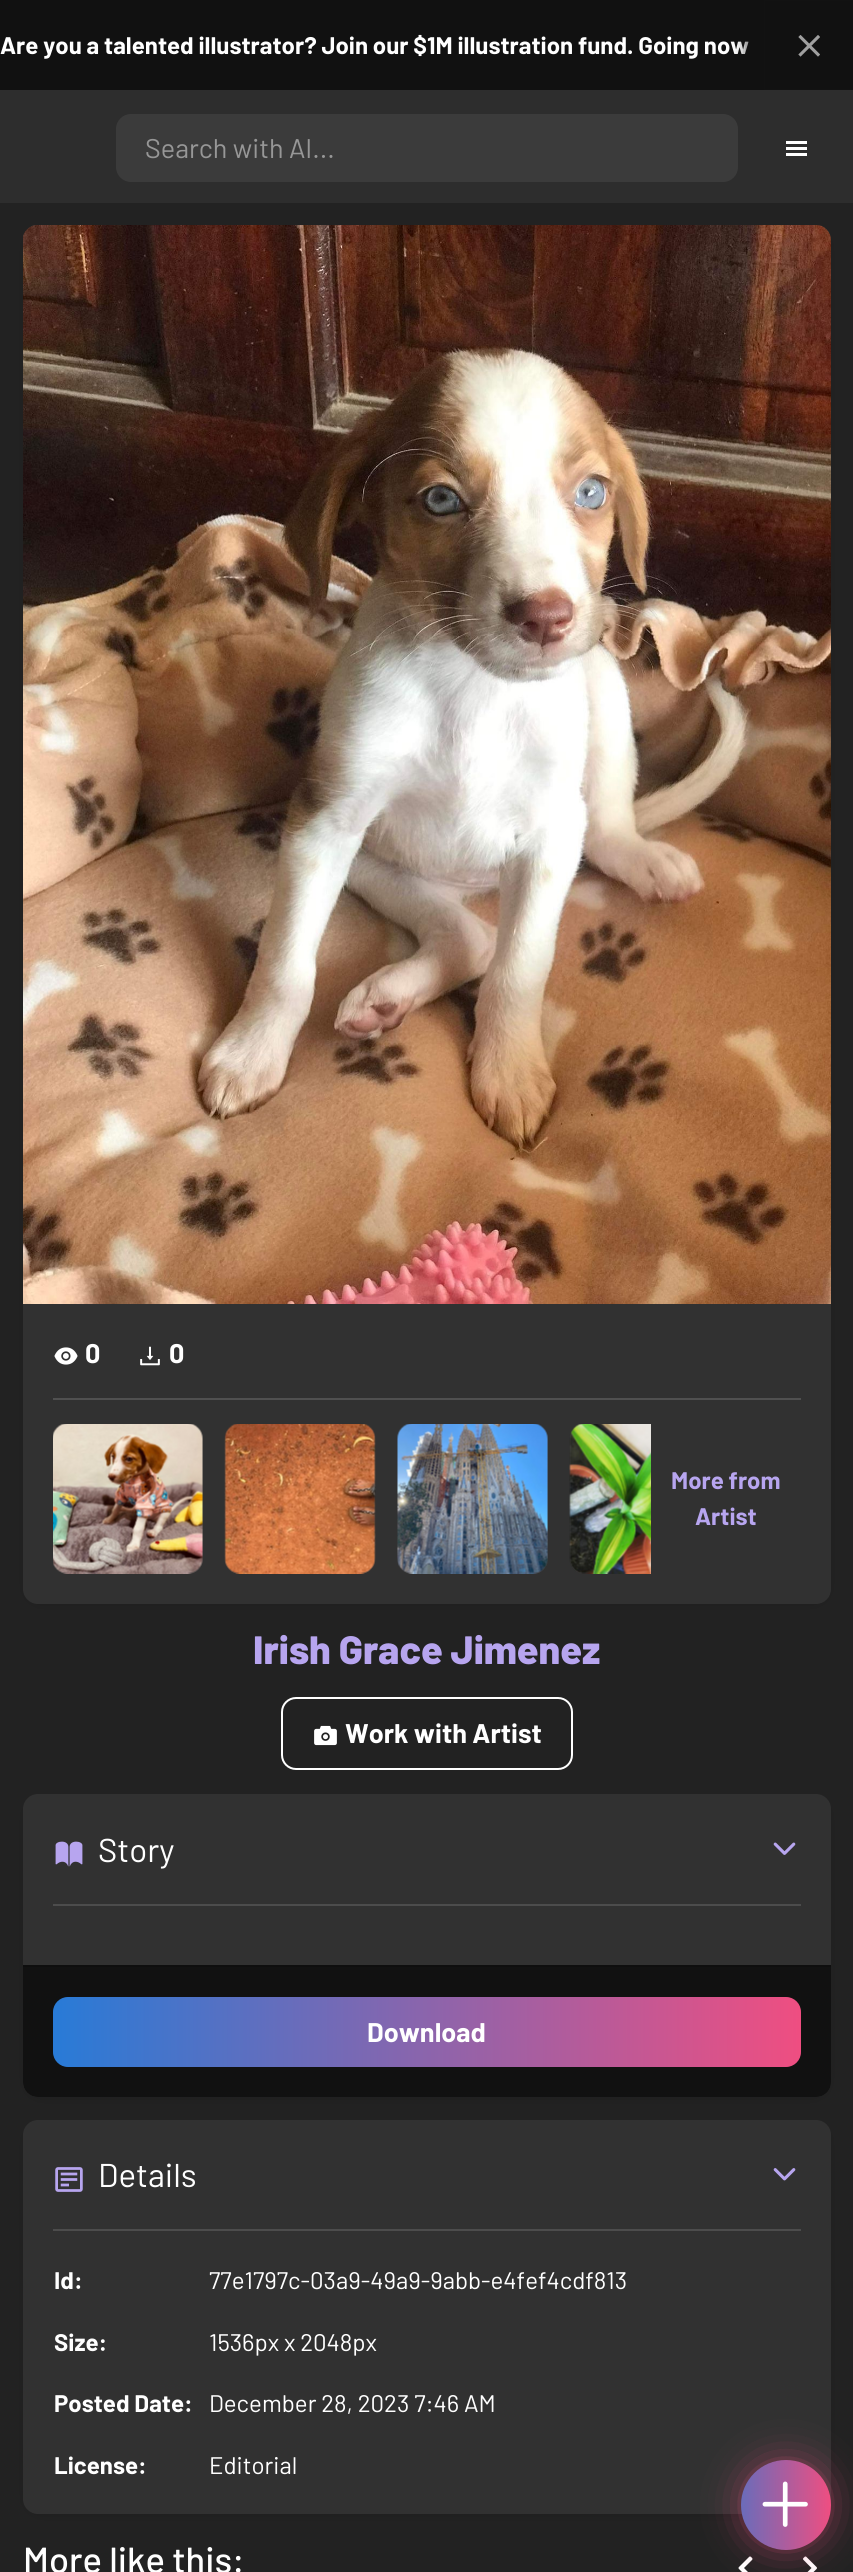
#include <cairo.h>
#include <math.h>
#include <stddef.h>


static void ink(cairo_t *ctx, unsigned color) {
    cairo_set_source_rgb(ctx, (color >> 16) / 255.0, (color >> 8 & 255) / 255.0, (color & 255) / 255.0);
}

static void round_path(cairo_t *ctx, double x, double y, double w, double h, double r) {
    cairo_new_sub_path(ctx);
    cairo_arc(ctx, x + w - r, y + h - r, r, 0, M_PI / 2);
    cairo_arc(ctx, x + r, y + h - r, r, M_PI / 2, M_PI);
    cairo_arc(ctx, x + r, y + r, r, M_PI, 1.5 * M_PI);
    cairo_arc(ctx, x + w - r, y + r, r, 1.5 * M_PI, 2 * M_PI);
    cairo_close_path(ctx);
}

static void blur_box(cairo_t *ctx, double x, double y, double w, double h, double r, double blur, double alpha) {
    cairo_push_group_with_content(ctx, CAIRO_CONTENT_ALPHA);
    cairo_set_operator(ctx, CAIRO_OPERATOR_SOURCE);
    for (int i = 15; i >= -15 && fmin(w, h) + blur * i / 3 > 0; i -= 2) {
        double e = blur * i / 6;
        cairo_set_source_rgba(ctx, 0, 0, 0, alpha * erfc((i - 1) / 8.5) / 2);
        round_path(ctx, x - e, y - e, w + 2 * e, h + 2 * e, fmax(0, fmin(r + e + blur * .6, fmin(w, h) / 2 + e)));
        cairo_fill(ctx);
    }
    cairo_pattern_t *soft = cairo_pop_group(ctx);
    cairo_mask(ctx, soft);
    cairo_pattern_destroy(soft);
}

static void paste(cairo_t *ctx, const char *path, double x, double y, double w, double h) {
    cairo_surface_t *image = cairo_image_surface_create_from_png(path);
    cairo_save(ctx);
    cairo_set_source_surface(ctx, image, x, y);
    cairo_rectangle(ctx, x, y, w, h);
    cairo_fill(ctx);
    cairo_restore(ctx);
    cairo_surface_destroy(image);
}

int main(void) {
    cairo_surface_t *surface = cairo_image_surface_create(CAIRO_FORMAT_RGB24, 853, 2572);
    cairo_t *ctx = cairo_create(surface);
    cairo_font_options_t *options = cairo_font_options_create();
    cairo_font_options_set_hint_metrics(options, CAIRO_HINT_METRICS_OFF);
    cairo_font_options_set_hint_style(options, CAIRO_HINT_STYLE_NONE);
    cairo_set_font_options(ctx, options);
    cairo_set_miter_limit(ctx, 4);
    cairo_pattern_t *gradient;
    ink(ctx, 0x222222);
    cairo_paint(ctx);
    ink(ctx, 0x111111);
    cairo_rectangle(ctx, 0, 0, 764, 90);
    cairo_fill(ctx);
    cairo_select_font_face(ctx, "Barlow", CAIRO_FONT_SLANT_NORMAL, CAIRO_FONT_WEIGHT_BOLD);
    cairo_set_font_size(ctx, 24);
    ink(ctx, 0xFFFFFF);
    cairo_move_to(ctx, 0, 54);
    cairo_show_text(ctx, "Are you a talented illustrator? Join our $1M illustration fund. Going now");
    ink(ctx, 0x2D2D2D);
    cairo_rectangle(ctx, 0, 90, 853, 113);
    cairo_fill(ctx);
    ink(ctx, 0x3B3B3B);
    round_path(ctx, 116, 114, 622, 68, 15);
    cairo_fill(ctx);
    cairo_save(ctx);
    cairo_rectangle(ctx, 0, 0, 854, 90);
    cairo_clip(ctx);
    ink(ctx, 0x111111);
    blur_box(ctx, 749, -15, 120, 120, 0, 7.5, 1);
    cairo_restore(ctx);
    paste(ctx, "media/1.png", 798, 35, 22, 22);
    ink(ctx, 0x000000);
    blur_box(ctx, 39, 245, 776, 1345, 0, 9, 1);
    ink(ctx, 0x313131);
    round_path(ctx, 23, 225, 808, 1379, 15);
    cairo_fill(ctx);
    paste(ctx, "media/2.png", 23, 225, 808, 1079);
    paste(ctx, "media/3.png", 54, 1347, 24, 18);
    cairo_set_font_size(ctx, 27);
    ink(ctx, 0xFFFFFF);
    cairo_move_to(ctx, 85, 1363);
    cairo_show_text(ctx, "0");
    paste(ctx, "media/4.png", 140, 1346, 20, 20);
    cairo_move_to(ctx, 169, 1363);
    cairo_show_text(ctx, "0");
    ink(ctx, 0x505050);
    cairo_rectangle(ctx, 53, 1398, 748, 2);
    cairo_fill(ctx);
    ink(ctx, 0x3F3F3F);
    round_path(ctx, 53, 1424, 150, 150, 15);
    cairo_fill(ctx);
    paste(ctx, "media/5.png", 53, 1424, 150, 150);
    round_path(ctx, 225, 1424, 150, 150, 15);
    cairo_fill(ctx);
    paste(ctx, "media/6.png", 224, 1424, 152, 150);
    round_path(ctx, 398, 1424, 150, 150, 15);
    cairo_fill(ctx);
    paste(ctx, "media/7.png", 397, 1424, 151, 150);
    cairo_new_path(ctx);
    cairo_move_to(ctx, 585, 1424);
    cairo_line_to(ctx, 651, 1424);
    cairo_line_to(ctx, 651, 1574);
    cairo_line_to(ctx, 585, 1574);
    cairo_curve_to(ctx, 576.5, 1574, 570, 1567.5, 570, 1559);
    cairo_line_to(ctx, 570, 1439);
    cairo_curve_to(ctx, 570, 1430.5, 576.5, 1424, 585, 1424);
    cairo_close_path(ctx);
    cairo_fill(ctx);
    paste(ctx, "media/8.png", 569, 1424, 82, 150);
    cairo_set_font_size(ctx, 24);
    ink(ctx, 0xB7A5EF);
    cairo_move_to(ctx, 671, 1489);
    cairo_show_text(ctx, "More from");
    cairo_move_to(ctx, 695, 1525);
    cairo_show_text(ctx, "Artist");
    cairo_select_font_face(ctx, "Barlow ExtraBold", CAIRO_FONT_SLANT_NORMAL, CAIRO_FONT_WEIGHT_NORMAL);
    cairo_set_font_size(ctx, 39.5);
    cairo_move_to(ctx, 253, 1664);
    cairo_show_text(ctx, "Irish Grace Jimenez");
    round_path(ctx, 282, 1698, 290, 71, 14);
    ink(ctx, 0xFFFFFF);
    cairo_stroke(ctx);
    paste(ctx, "media/9.png", 314, 1725, 23, 21);
    cairo_select_font_face(ctx, "Barlow", CAIRO_FONT_SLANT_NORMAL, CAIRO_FONT_WEIGHT_BOLD);
    cairo_set_font_size(ctx, 27);
    cairo_move_to(ctx, 345, 1743);
    cairo_show_text(ctx, "Work with Artist");
    ink(ctx, 0x000000);
    blur_box(ctx, 39, 1814, 776, 270, 0, 9, 1);
    ink(ctx, 0x313131);
    round_path(ctx, 23, 1794, 808, 303, 15);
    cairo_fill(ctx);
    ink(ctx, 0x4C4C4C);
    cairo_rectangle(ctx, 53, 1904, 748, 2);
    cairo_fill(ctx);
    paste(ctx, "media/10.png", 55, 1841, 28, 26);
    cairo_select_font_face(ctx, "Barlow", CAIRO_FONT_SLANT_NORMAL, CAIRO_FONT_WEIGHT_NORMAL);
    cairo_set_font_size(ctx, 33);
    ink(ctx, 0xFFFFFF);
    cairo_move_to(ctx, 98, 1862);
    cairo_show_text(ctx, "Story");
    paste(ctx, "media/11.png", 773, 1842, 23, 13);
    ink(ctx, 0x111111);
    cairo_new_path(ctx);
    cairo_move_to(ctx, 23, 1965);
    cairo_line_to(ctx, 831, 1965);
    cairo_line_to(ctx, 831, 2082);
    cairo_curve_to(ctx, 831, 2090.5, 824.5, 2097, 816, 2097);
    cairo_line_to(ctx, 38, 2097);
    cairo_curve_to(ctx, 29.5, 2097, 23, 2090.5, 23, 2082);
    cairo_close_path(ctx);
    cairo_fill(ctx);
    ink(ctx, 0x0E0E0E);
    cairo_rectangle(ctx, 23, 1965, 808, 2);
    cairo_fill(ctx);
    gradient = cairo_pattern_create_linear(53, 2032, 801, 2032);
    cairo_pattern_add_color_stop_rgba(gradient, 0, 0.157, 0.482, 0.843, 1);
    cairo_pattern_add_color_stop_rgba(gradient, 1, 0.937, 0.306, 0.506, 1);
    cairo_set_source(ctx, gradient);
    cairo_pattern_destroy(gradient);
    round_path(ctx, 53, 1997, 748, 70, 15);
    cairo_fill(ctx);
    cairo_select_font_face(ctx, "Barlow", CAIRO_FONT_SLANT_NORMAL, CAIRO_FONT_WEIGHT_BOLD);
    cairo_set_font_size(ctx, 27);
    ink(ctx, 0xFFFFFF);
    cairo_move_to(ctx, 367, 2042);
    cairo_show_text(ctx, "Download");
    ink(ctx, 0x000000);
    blur_box(ctx, 39, 2139, 776, 362, 0, 9, 1);
    ink(ctx, 0x313131);
    round_path(ctx, 23, 2120, 808, 394, 15);
    cairo_fill(ctx);
    ink(ctx, 0x4C4C4C);
    cairo_rectangle(ctx, 53, 2229, 748, 2);
    cairo_fill(ctx);
    paste(ctx, "media/12.png", 55, 2167, 28, 25);
    cairo_select_font_face(ctx, "Barlow", CAIRO_FONT_SLANT_NORMAL, CAIRO_FONT_WEIGHT_NORMAL);
    cairo_set_font_size(ctx, 33);
    ink(ctx, 0xFFFFFF);
    cairo_move_to(ctx, 98, 2187);
    cairo_show_text(ctx, "Details");
    paste(ctx, "media/13.png", 773, 2168, 23, 13);
    cairo_select_font_face(ctx, "Barlow", CAIRO_FONT_SLANT_NORMAL, CAIRO_FONT_WEIGHT_BOLD);
    cairo_set_font_size(ctx, 24);
    cairo_move_to(ctx, 54, 2289);
    cairo_show_text(ctx, "Id:");
    cairo_select_font_face(ctx, "Barlow", CAIRO_FONT_SLANT_NORMAL, CAIRO_FONT_WEIGHT_NORMAL);
    cairo_move_to(ctx, 209, 2289);
    cairo_show_text(ctx, "77e1797c-03a9-49a9-9abb-e4fef4cdf813");
    cairo_select_font_face(ctx, "Barlow", CAIRO_FONT_SLANT_NORMAL, CAIRO_FONT_WEIGHT_BOLD);
    cairo_move_to(ctx, 54, 2351);
    cairo_show_text(ctx, "Size:");
    cairo_select_font_face(ctx, "Barlow", CAIRO_FONT_SLANT_NORMAL, CAIRO_FONT_WEIGHT_NORMAL);
    cairo_move_to(ctx, 209, 2351);
    cairo_show_text(ctx, "1536px x 2048px");
    cairo_select_font_face(ctx, "Barlow", CAIRO_FONT_SLANT_NORMAL, CAIRO_FONT_WEIGHT_BOLD);
    cairo_move_to(ctx, 54, 2412);
    cairo_show_text(ctx, "Posted Date:");
    cairo_select_font_face(ctx, "Barlow", CAIRO_FONT_SLANT_NORMAL, CAIRO_FONT_WEIGHT_NORMAL);
    cairo_move_to(ctx, 209, 2412);
    cairo_show_text(ctx, "December 28, 2023 7:46 AM");
    cairo_select_font_face(ctx, "Barlow", CAIRO_FONT_SLANT_NORMAL, CAIRO_FONT_WEIGHT_BOLD);
    cairo_move_to(ctx, 54, 2474);
    cairo_show_text(ctx, "License:");
    cairo_select_font_face(ctx, "Barlow", CAIRO_FONT_SLANT_NORMAL, CAIRO_FONT_WEIGHT_NORMAL);
    cairo_move_to(ctx, 209, 2474);
    cairo_show_text(ctx, "Editorial");
    cairo_select_font_face(ctx, "Barlow Medium", CAIRO_FONT_SLANT_NORMAL, CAIRO_FONT_WEIGHT_NORMAL);
    cairo_set_font_size(ctx, 36.25);
    cairo_move_to(ctx, 23, 2573);
    cairo_show_text(ctx, "More like this:");
    paste(ctx, "media/14.png", 738, 2556, 15, 16);
    paste(ctx, "media/15.png", 803, 2556, 14, 16);
    cairo_select_font_face(ctx, "Barlow", CAIRO_FONT_SLANT_NORMAL, CAIRO_FONT_WEIGHT_NORMAL);
    cairo_set_font_size(ctx, 27);
    ink(ctx, 0x979797);
    cairo_move_to(ctx, 145, 158);
    cairo_show_text(ctx, "Search with AI...");
    paste(ctx, "media/16.png", 786, 141, 21, 15);
    ink(ctx, 0xEF4E81);
    blur_box(ctx, 756, 2475, 60, 60, 30, 22.5, 1);
    gradient = cairo_pattern_create_linear(696, 2505, 831, 2505);
    cairo_pattern_add_color_stop_rgba(gradient, 0, 0.157, 0.482, 0.843, 1);
    cairo_pattern_add_color_stop_rgba(gradient, 1, 0.937, 0.306, 0.506, 1);
    cairo_set_source(ctx, gradient);
    cairo_pattern_destroy(gradient);
    cairo_arc(ctx, 786, 2505, 45, 0, 2 * M_PI);
    cairo_fill(ctx);
    paste(ctx, "media/17.png", 762, 2481, 46, 46);
    cairo_surface_write_to_png(surface, "image.png");
    cairo_font_options_destroy(options);
    cairo_destroy(ctx);
    cairo_surface_destroy(surface);
    return 0;
}
